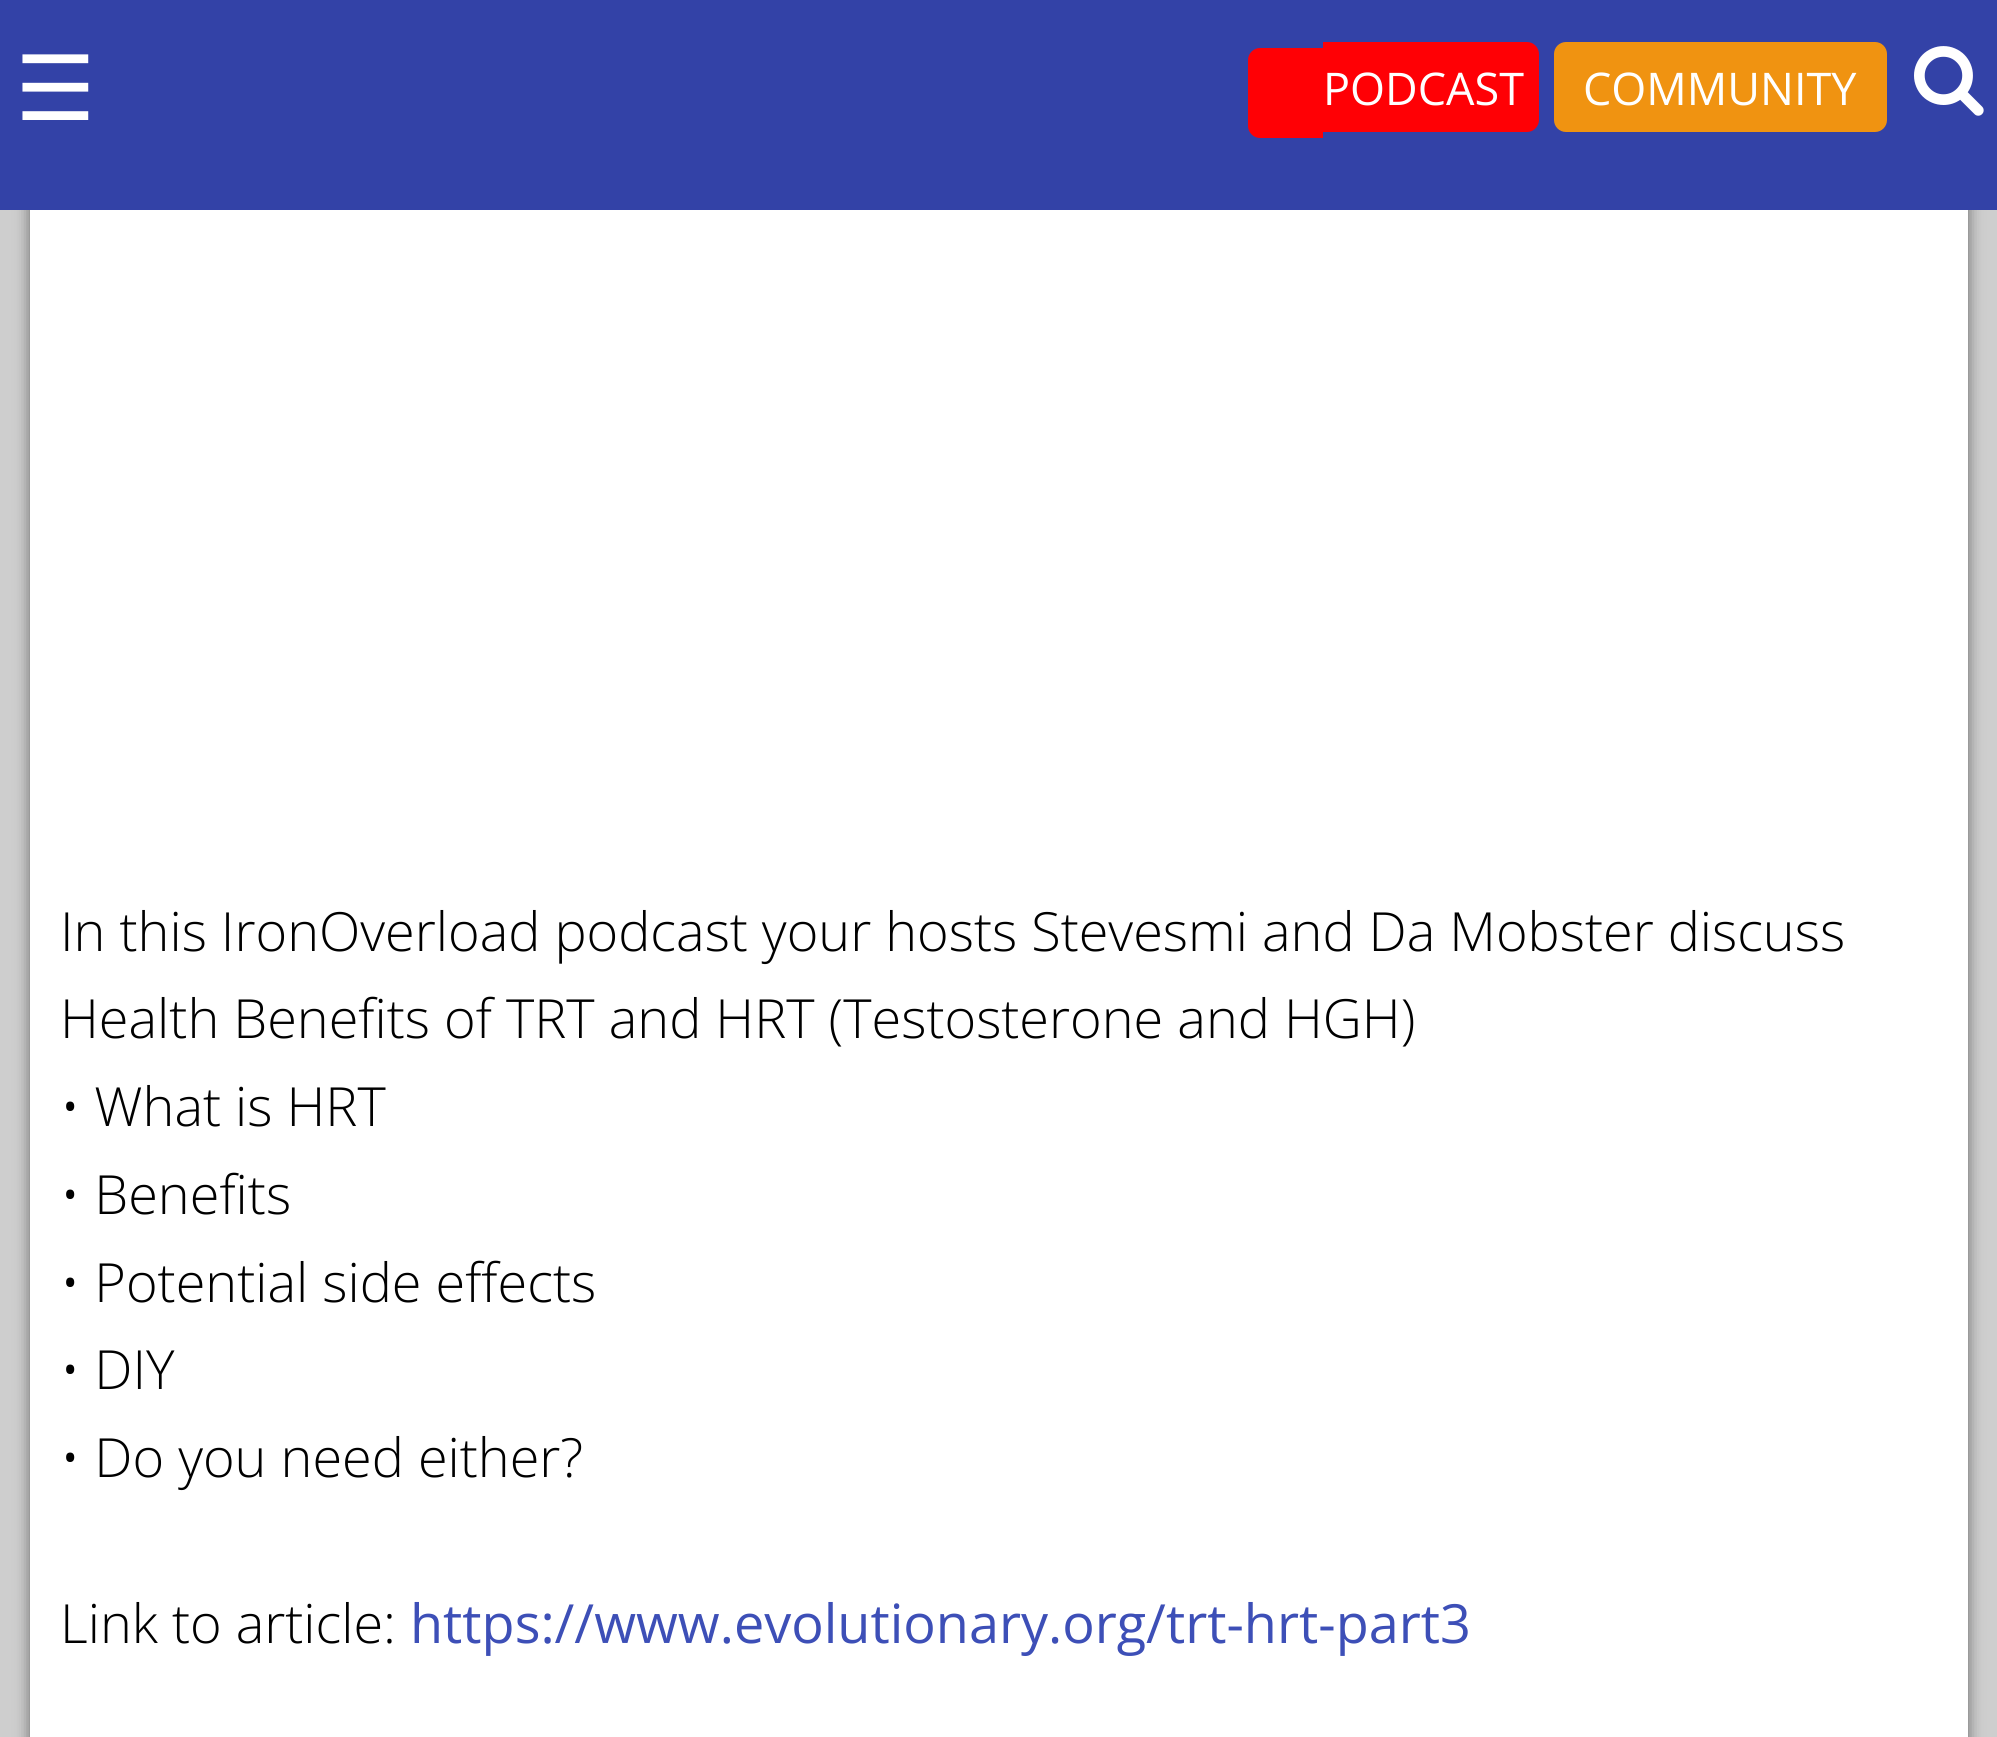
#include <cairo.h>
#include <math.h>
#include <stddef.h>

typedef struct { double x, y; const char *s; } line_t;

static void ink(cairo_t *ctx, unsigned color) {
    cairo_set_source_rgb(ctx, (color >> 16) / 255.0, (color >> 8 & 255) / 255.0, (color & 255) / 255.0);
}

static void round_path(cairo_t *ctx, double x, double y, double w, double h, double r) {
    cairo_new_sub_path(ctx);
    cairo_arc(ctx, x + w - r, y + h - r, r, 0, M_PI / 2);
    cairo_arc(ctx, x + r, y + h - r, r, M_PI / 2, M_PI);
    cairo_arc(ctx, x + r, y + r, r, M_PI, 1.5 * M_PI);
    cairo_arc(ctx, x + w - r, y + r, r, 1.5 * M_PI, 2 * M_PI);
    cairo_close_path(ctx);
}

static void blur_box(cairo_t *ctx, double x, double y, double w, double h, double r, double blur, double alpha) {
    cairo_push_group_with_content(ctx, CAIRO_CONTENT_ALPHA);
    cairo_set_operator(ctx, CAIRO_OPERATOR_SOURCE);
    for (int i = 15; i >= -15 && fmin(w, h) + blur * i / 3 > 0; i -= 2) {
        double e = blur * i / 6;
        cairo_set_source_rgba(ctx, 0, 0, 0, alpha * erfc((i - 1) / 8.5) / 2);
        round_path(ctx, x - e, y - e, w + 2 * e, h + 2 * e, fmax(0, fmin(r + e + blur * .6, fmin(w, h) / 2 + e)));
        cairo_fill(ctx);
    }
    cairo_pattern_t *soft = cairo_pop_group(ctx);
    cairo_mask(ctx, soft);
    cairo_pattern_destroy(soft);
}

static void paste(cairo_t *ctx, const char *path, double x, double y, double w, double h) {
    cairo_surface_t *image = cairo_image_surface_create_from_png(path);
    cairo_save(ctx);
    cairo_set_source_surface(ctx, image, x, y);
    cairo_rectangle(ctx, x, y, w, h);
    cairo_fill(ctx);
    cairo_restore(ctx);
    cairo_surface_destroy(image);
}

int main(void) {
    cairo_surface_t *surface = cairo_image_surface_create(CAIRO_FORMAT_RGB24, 1997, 1737);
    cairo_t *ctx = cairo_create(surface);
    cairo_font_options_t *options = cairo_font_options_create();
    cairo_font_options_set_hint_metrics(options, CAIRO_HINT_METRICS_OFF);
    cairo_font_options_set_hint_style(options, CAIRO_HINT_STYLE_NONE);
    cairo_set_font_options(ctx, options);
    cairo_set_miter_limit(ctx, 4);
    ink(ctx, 0xCECECE);
    cairo_paint(ctx);
    ink(ctx, 0x000000);
    blur_box(ctx, 30, -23, 1938, 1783, 0, 7.5, 0.5);
    ink(ctx, 0x3342A7);
    cairo_rectangle(ctx, 0, 0, 1997, 210);
    cairo_fill(ctx);
    cairo_select_font_face(ctx, "DejaVu Sans", CAIRO_FONT_SLANT_NORMAL, CAIRO_FONT_WEIGHT_NORMAL);
    cairo_set_font_size(ctx, 90);
    ink(ctx, 0xFFFFFF);
    cairo_move_to(ctx, 15, 120);
    cairo_show_text(ctx, "☰");
    ink(ctx, 0xFF0005);
    cairo_new_path(ctx);
    cairo_move_to(ctx, 1323, 42);
    cairo_line_to(ctx, 1527, 42);
    cairo_curve_to(ctx, 1533.5, 42, 1539, 47.5, 1539, 54);
    cairo_line_to(ctx, 1539, 120);
    cairo_curve_to(ctx, 1539, 126.5, 1533.5, 132, 1527, 132);
    cairo_line_to(ctx, 1323, 132);
    cairo_close_path(ctx);
    cairo_fill(ctx);
    cairo_select_font_face(ctx, "Open Sans", CAIRO_FONT_SLANT_NORMAL, CAIRO_FONT_WEIGHT_NORMAL);
    cairo_set_font_size(ctx, 45);
    ink(ctx, 0xFFFFFF);
    cairo_move_to(ctx, 1323, 105);
    cairo_show_text(ctx, "PODCAST");
    ink(ctx, 0xFF0005);
    cairo_new_path(ctx);
    cairo_move_to(ctx, 1260, 48);
    cairo_line_to(ctx, 1323, 48);
    cairo_line_to(ctx, 1323, 138);
    cairo_line_to(ctx, 1260, 138);
    cairo_curve_to(ctx, 1253.5, 138, 1248, 132.5, 1248, 126);
    cairo_line_to(ctx, 1248, 60);
    cairo_curve_to(ctx, 1248, 53.5, 1253.5, 48, 1260, 48);
    cairo_close_path(ctx);
    cairo_fill(ctx);
    ink(ctx, 0xF09311);
    round_path(ctx, 1554, 42, 333, 90, 12);
    cairo_fill(ctx);
    ink(ctx, 0xFFFFFF);
    cairo_move_to(ctx, 1583, 105);
    cairo_show_text(ctx, "COMMUNITY");
    paste(ctx, "media/1.png", 1914, 46, 70, 70);
    cairo_rectangle(ctx, 30, 210, 1938, 1527);
    cairo_fill(ctx);
    cairo_select_font_face(ctx, "Open Sans Light", CAIRO_FONT_SLANT_NORMAL, CAIRO_FONT_WEIGHT_NORMAL);
    cairo_set_font_size(ctx, 54);
    ink(ctx, 0x000000);
    {
        static const line_t items[] = {
            {60, 951, "In this IronOverload podcast your hosts Stevesmi and Da Mobster discuss"},
            {60, 1038, "Health Benefits of TRT and HRT (Testosterone and HGH)"},
            {60, 1126, "• What is HRT"},
            {60, 1214, "• Benefits"},
            {60, 1302, "• Potential side effects"},
            {60, 1389, "• DIY"},
            {60, 1477, "• Do you need either?"},
            {60, 1643, "Link to article:"},
        };
        for (size_t i = 0; i < sizeof items / sizeof *items; i++) {
            cairo_move_to(ctx, items[i].x, items[i].y);
            cairo_show_text(ctx, items[i].s);
        }
    }
    cairo_select_font_face(ctx, "Open Sans", CAIRO_FONT_SLANT_NORMAL, CAIRO_FONT_WEIGHT_NORMAL);
    ink(ctx, 0x3D4FB7);
    cairo_move_to(ctx, 410, 1643);
    cairo_show_text(ctx, "https://www.evolutionary.org/trt-hrt-part3");
    cairo_surface_write_to_png(surface, "image.png");
    cairo_font_options_destroy(options);
    cairo_destroy(ctx);
    cairo_surface_destroy(surface);
    return 0;
}
